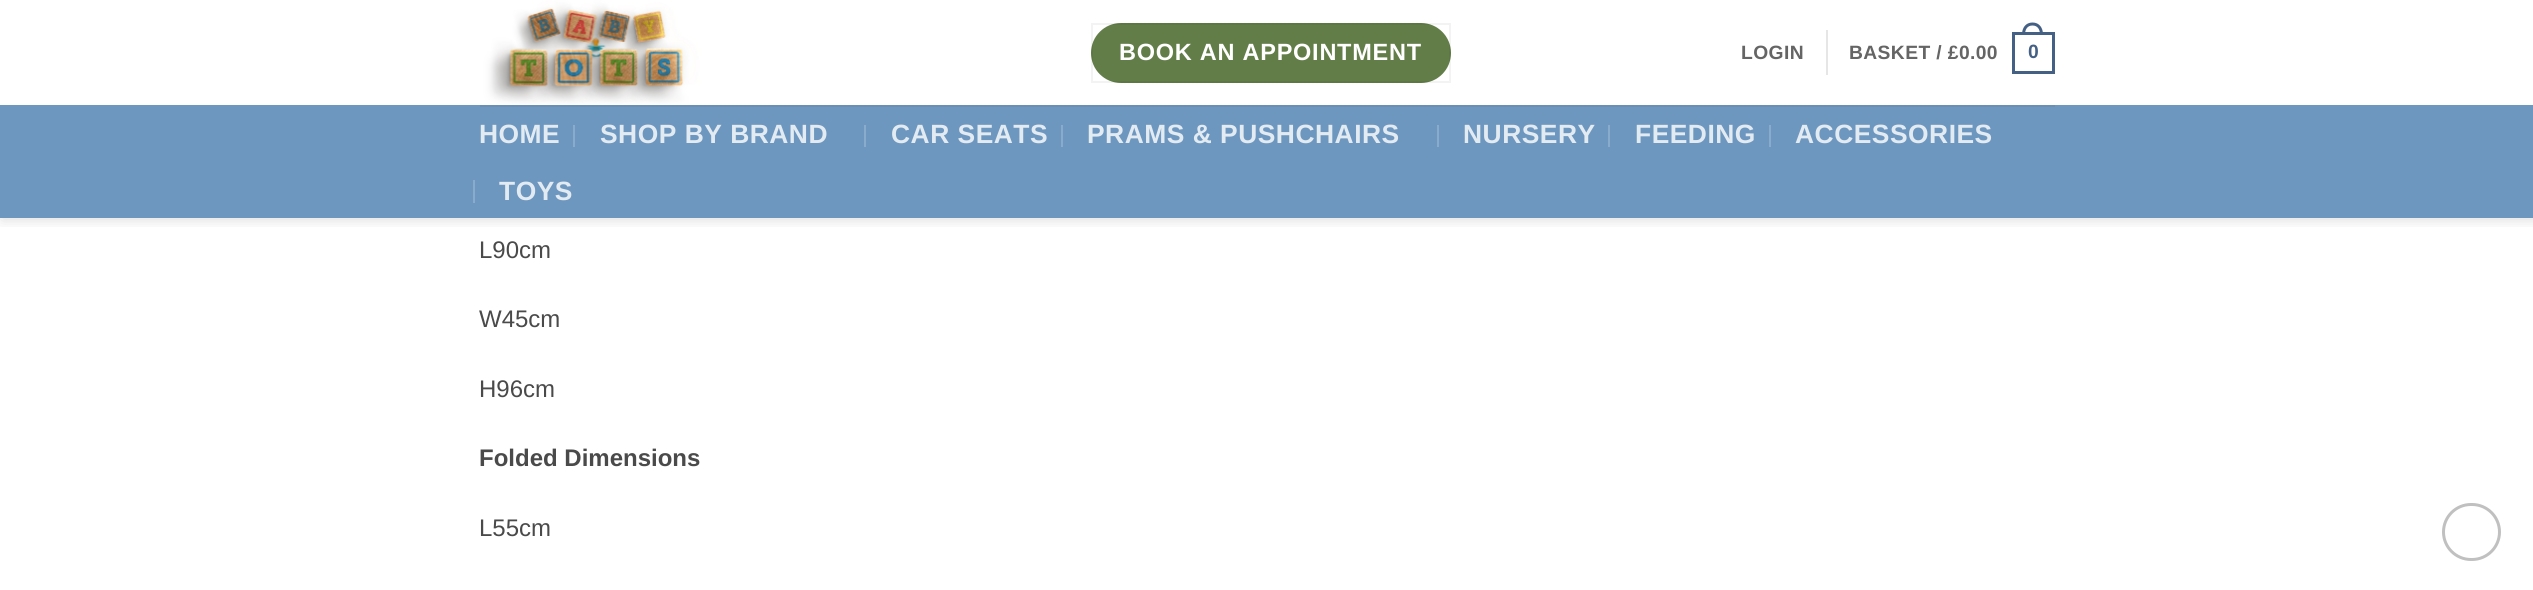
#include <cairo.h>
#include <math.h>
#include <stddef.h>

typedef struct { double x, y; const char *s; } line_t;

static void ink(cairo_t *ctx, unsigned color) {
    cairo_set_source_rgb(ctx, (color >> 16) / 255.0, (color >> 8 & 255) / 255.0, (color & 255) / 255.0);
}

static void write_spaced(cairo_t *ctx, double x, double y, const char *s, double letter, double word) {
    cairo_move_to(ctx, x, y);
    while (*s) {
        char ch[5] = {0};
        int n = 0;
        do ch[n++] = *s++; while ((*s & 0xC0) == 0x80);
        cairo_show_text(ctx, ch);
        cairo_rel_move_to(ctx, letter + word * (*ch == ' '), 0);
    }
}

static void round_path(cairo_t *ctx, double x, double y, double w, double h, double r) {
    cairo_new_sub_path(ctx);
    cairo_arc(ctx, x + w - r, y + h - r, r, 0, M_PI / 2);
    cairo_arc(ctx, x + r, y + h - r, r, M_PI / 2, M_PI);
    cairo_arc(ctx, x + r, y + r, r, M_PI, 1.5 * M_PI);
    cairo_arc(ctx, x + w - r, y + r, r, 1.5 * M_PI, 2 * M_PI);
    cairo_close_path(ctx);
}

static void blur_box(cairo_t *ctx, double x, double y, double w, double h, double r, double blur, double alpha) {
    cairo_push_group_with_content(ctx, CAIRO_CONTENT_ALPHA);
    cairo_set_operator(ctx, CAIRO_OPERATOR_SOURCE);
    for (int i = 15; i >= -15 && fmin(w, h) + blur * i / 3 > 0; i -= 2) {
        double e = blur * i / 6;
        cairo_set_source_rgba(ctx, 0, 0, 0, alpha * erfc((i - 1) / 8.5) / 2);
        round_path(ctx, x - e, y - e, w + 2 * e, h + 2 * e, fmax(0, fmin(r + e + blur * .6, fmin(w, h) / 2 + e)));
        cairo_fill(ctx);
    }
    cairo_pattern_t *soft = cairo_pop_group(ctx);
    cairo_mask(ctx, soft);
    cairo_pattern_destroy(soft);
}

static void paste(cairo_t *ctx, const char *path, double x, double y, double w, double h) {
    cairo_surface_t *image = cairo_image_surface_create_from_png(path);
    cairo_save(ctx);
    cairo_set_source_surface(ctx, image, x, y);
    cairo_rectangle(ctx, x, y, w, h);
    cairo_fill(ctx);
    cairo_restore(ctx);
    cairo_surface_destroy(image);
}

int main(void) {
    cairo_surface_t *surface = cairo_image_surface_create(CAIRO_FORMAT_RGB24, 2533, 590);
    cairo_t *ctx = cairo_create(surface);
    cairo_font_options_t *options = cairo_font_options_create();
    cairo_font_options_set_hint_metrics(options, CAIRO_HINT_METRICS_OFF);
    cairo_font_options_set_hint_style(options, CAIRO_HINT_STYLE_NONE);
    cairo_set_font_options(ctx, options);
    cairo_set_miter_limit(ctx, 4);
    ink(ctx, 0xFFFFFF);
    cairo_paint(ctx);
    cairo_save(ctx);
    cairo_rectangle(ctx, 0, 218, 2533, 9);
    cairo_clip(ctx);
    ink(ctx, 0x000000);
    blur_box(ctx, 2, 2, 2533, 217, 0, 7.5, 0.15);
    cairo_restore(ctx);
    paste(ctx, "media/1.png", 480, 0, 227, 105);
    ink(ctx, 0x627D47);
    round_path(ctx, 1091, 23, 360, 60, 30);
    cairo_fill(ctx);
    cairo_rectangle(ctx, 1092, 24, 358, 58);
    cairo_set_source_rgba(ctx, 0, 0, 0, 0.05);
    cairo_stroke(ctx);
    cairo_select_font_face(ctx, "Liberation Sans", CAIRO_FONT_SLANT_NORMAL, CAIRO_FONT_WEIGHT_BOLD);
    cairo_set_font_size(ctx, 23.5);
    ink(ctx, 0xFFFFFF);
    write_spaced(ctx, 1119, 60, "BOOK AN APPOINTMENT", 0.75, 0);
    cairo_set_font_size(ctx, 19.25);
    ink(ctx, 0x656565);
    write_spaced(ctx, 1741, 59, "LOGIN", 0.4, 0);
    cairo_set_source_rgba(ctx, 0, 0, 0, 0.1);
    cairo_rectangle(ctx, 1826, 30, 2, 45);
    cairo_fill(ctx);
    ink(ctx, 0x656565);
    write_spaced(ctx, 1849, 59, "BASKET / £0.00", 0.4, 0);
    cairo_rectangle(ctx, 2013.5, 33.5, 40, 39);
    ink(ctx, 0x446084);
    cairo_set_line_width(ctx, 3);
    cairo_stroke(ctx);
    cairo_set_fill_rule(ctx, CAIRO_FILL_RULE_EVEN_ODD);
    cairo_new_path(ctx);
    cairo_move_to(ctx, 2032.5, 22.5);
    cairo_curve_to(ctx, 2039.5, 22.5, 2043, 28, 2043, 34.5);
    cairo_line_to(ctx, 2022, 34.5);
    cairo_curve_to(ctx, 2022, 28, 2025.5, 22.5, 2032.5, 22.5);
    cairo_close_path(ctx);
    cairo_move_to(ctx, 2032.5, 25.5);
    cairo_curve_to(ctx, 2038, 25.5, 2040, 30, 2040, 34.5);
    cairo_line_to(ctx, 2025, 34.5);
    cairo_curve_to(ctx, 2025, 30, 2027, 25.5, 2032.5, 25.5);
    cairo_close_path(ctx);
    cairo_fill(ctx);
    write_spaced(ctx, 2028, 58, "0", 0.4, 0);
    ink(ctx, 0x6D97BF);
    cairo_rectangle(ctx, 0, 105, 2533, 113);
    cairo_fill(ctx);
    ink(ctx, 0x6A8FB3);
    cairo_rectangle(ctx, 480, 105, 1575, 2);
    cairo_fill(ctx);
    cairo_set_font_size(ctx, 26.4);
    ink(ctx, 0xE2EAF2);
    write_spaced(ctx, 479, 143, "HOME", 0.5, 0);
    ink(ctx, 0x8AACCC);
    cairo_rectangle(ctx, 573, 125, 2, 22);
    cairo_fill(ctx);
    ink(ctx, 0xE2EAF2);
    write_spaced(ctx, 600, 143, "SHOP BY BRAND", 0.5, 0);
    ink(ctx, 0x8AACCC);
    cairo_rectangle(ctx, 864, 125, 2, 22);
    cairo_fill(ctx);
    ink(ctx, 0xE2EAF2);
    write_spaced(ctx, 891, 143, "CAR SEATS", 0.5, 0);
    ink(ctx, 0x8AACCC);
    cairo_rectangle(ctx, 1061, 125, 2, 22);
    cairo_fill(ctx);
    ink(ctx, 0xE2EAF2);
    write_spaced(ctx, 1087, 143, "PRAMS & PUSHCHAIRS", 0.5, 0);
    ink(ctx, 0x8AACCC);
    cairo_rectangle(ctx, 1437, 125, 2, 22);
    cairo_fill(ctx);
    ink(ctx, 0xE2EAF2);
    write_spaced(ctx, 1463, 143, "NURSERY", 0.5, 0);
    ink(ctx, 0x8AACCC);
    cairo_rectangle(ctx, 1608, 125, 2, 22);
    cairo_fill(ctx);
    ink(ctx, 0xE2EAF2);
    write_spaced(ctx, 1635, 143, "FEEDING", 0.5, 0);
    ink(ctx, 0x8AACCC);
    cairo_rectangle(ctx, 1769, 125, 2, 22);
    cairo_fill(ctx);
    ink(ctx, 0xE2EAF2);
    write_spaced(ctx, 1795, 143, "ACCESSORIES", 0.5, 0);
    ink(ctx, 0x8AACCC);
    cairo_rectangle(ctx, 473, 180, 2, 23);
    cairo_fill(ctx);
    ink(ctx, 0xE2EAF2);
    write_spaced(ctx, 499, 200, "TOYS", 0.5, 0);
    cairo_select_font_face(ctx, "Liberation Sans", CAIRO_FONT_SLANT_NORMAL, CAIRO_FONT_WEIGHT_NORMAL);
    cairo_set_font_size(ctx, 24);
    ink(ctx, 0x4A4A4A);
    {
        static const line_t items[] = {
            {479, 258, "L90cm"},
            {479, 327, "W45cm"},
            {479, 397, "H96cm"},
        };
        for (size_t i = 0; i < sizeof items / sizeof *items; i++) {
            cairo_move_to(ctx, items[i].x, items[i].y);
            cairo_show_text(ctx, items[i].s);
        }
    }
    cairo_select_font_face(ctx, "Liberation Sans", CAIRO_FONT_SLANT_NORMAL, CAIRO_FONT_WEIGHT_BOLD);
    cairo_move_to(ctx, 479, 466);
    cairo_show_text(ctx, "Folded Dimensions");
    cairo_select_font_face(ctx, "Liberation Sans", CAIRO_FONT_SLANT_NORMAL, CAIRO_FONT_WEIGHT_NORMAL);
    cairo_move_to(ctx, 479, 536);
    cairo_show_text(ctx, "L55cm");
    round_path(ctx, 2443.5, 504.5, 56, 55, 27.5);
    ink(ctx, 0xC0C0C0);
    cairo_stroke(ctx);
    cairo_surface_write_to_png(surface, "image.png");
    cairo_font_options_destroy(options);
    cairo_destroy(ctx);
    cairo_surface_destroy(surface);
    return 0;
}
